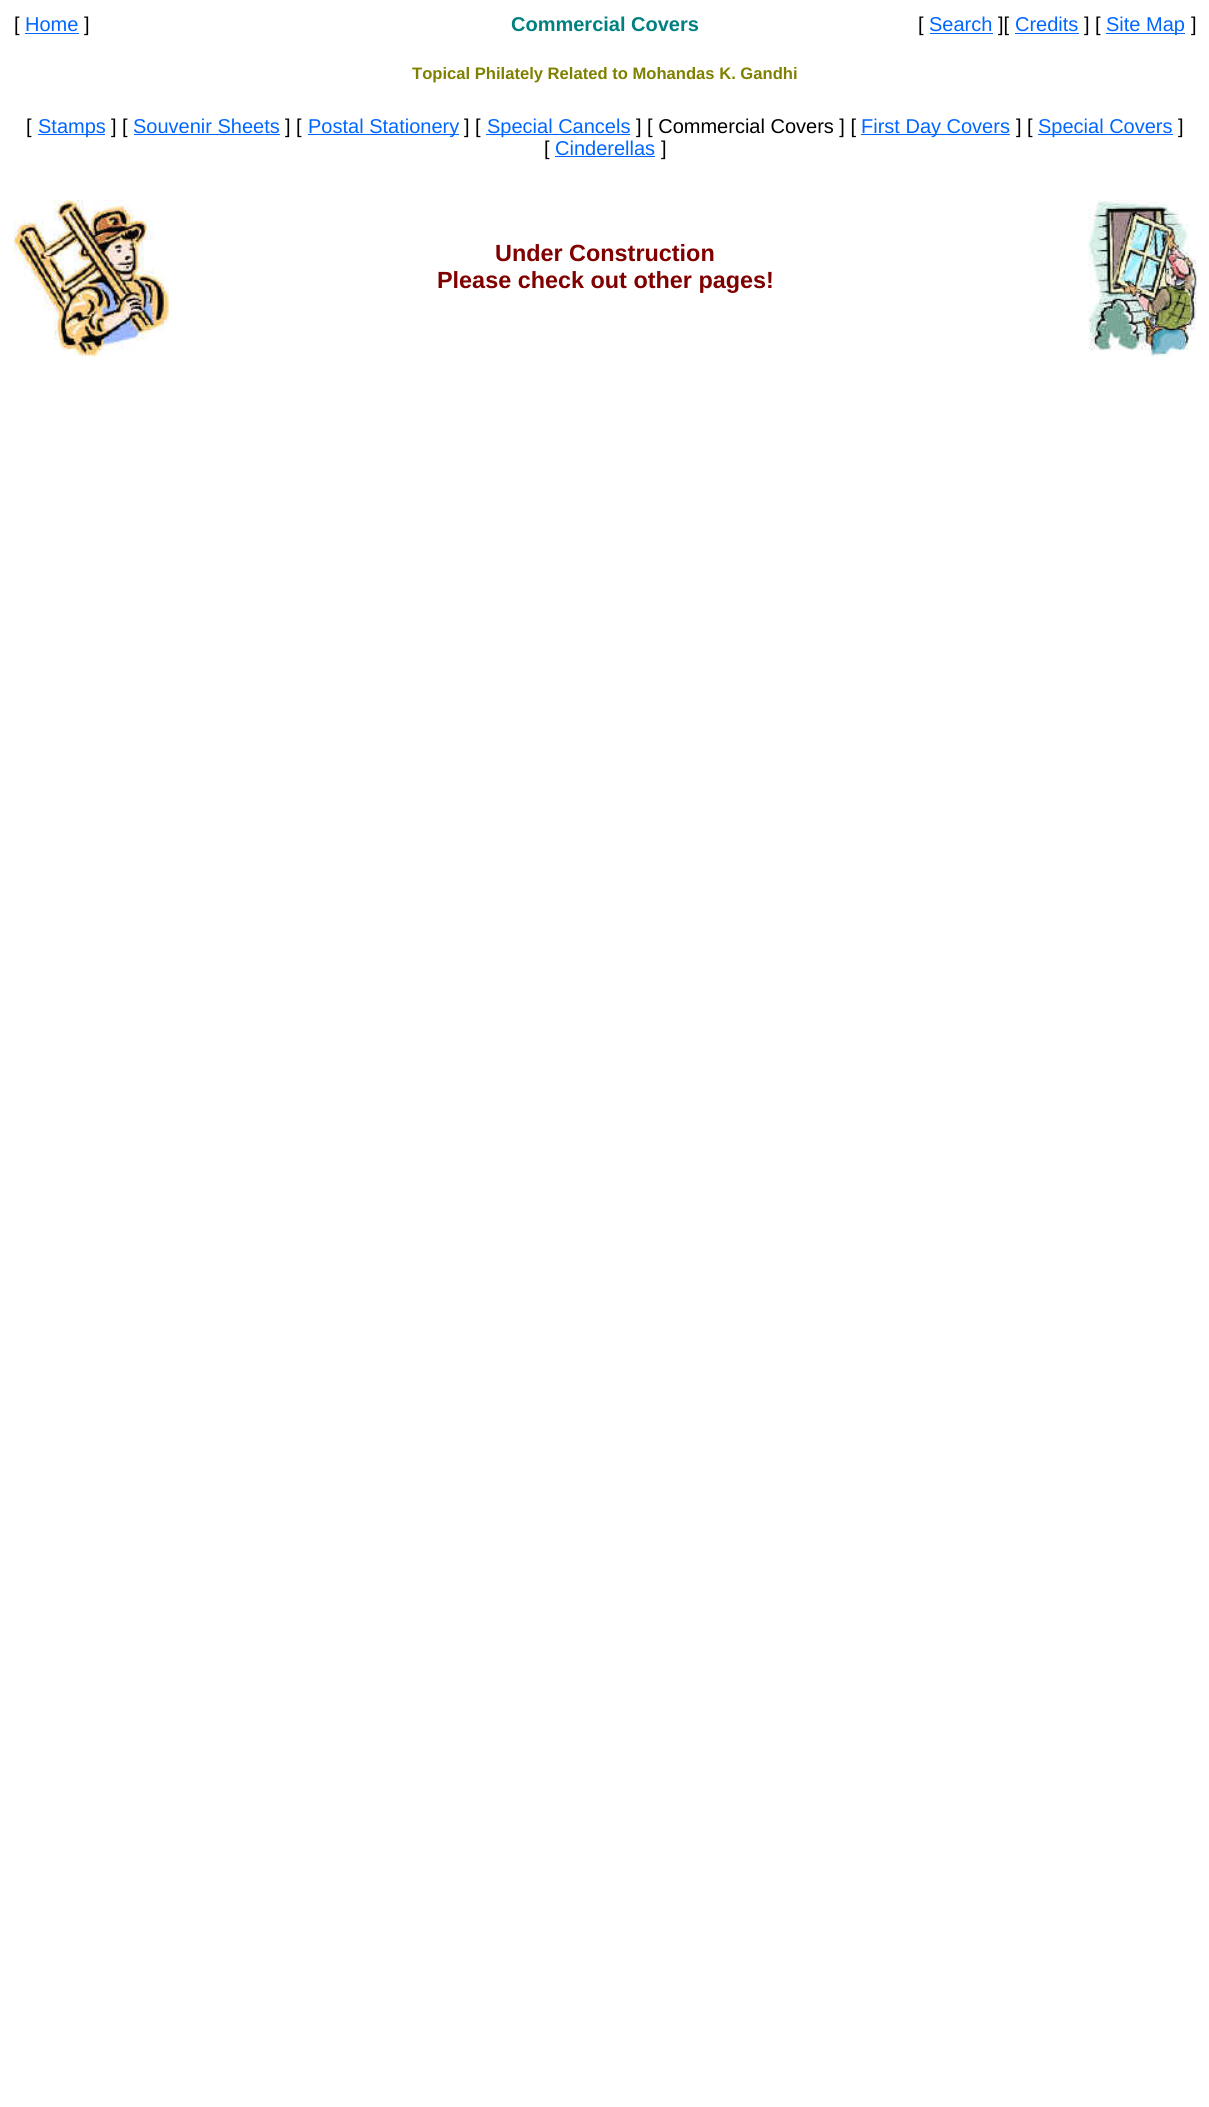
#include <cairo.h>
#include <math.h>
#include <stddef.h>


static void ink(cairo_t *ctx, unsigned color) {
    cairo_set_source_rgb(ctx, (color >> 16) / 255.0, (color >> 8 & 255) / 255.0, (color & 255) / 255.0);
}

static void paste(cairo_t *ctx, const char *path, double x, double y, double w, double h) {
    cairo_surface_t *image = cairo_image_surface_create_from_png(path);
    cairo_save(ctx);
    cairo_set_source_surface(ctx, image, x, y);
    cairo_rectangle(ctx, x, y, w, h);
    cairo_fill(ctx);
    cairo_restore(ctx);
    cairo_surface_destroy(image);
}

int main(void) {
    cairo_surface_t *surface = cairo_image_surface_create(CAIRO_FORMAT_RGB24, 1209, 2107);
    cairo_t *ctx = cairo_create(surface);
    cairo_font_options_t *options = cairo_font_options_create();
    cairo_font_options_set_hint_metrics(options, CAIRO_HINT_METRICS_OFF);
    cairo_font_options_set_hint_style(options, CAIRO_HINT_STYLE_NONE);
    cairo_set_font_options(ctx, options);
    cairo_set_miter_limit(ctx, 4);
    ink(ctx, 0xFFFFFF);
    cairo_paint(ctx);
    cairo_select_font_face(ctx, "Liberation Sans", CAIRO_FONT_SLANT_NORMAL, CAIRO_FONT_WEIGHT_NORMAL);
    cairo_set_font_size(ctx, 20);
    ink(ctx, 0x000000);
    cairo_move_to(ctx, 14, 31);
    cairo_show_text(ctx, "[");
    ink(ctx, 0x0066FF);
    cairo_move_to(ctx, 25, 31);
    cairo_show_text(ctx, "Home");
    cairo_rectangle(ctx, 25, 33, 54, 1);
    cairo_fill(ctx);
    ink(ctx, 0x000000);
    cairo_move_to(ctx, 84, 31);
    cairo_show_text(ctx, "]");
    cairo_select_font_face(ctx, "Liberation Sans", CAIRO_FONT_SLANT_NORMAL, CAIRO_FONT_WEIGHT_BOLD);
    ink(ctx, 0x008080);
    cairo_move_to(ctx, 511, 31);
    cairo_show_text(ctx, "Commercial Covers");
    cairo_set_font_size(ctx, 16.6);
    ink(ctx, 0x808000);
    cairo_move_to(ctx, 412, 79);
    cairo_show_text(ctx, "Topical Philately Related to Mohandas K. Gandhi");
    cairo_select_font_face(ctx, "Liberation Sans", CAIRO_FONT_SLANT_NORMAL, CAIRO_FONT_WEIGHT_NORMAL);
    cairo_set_font_size(ctx, 20);
    ink(ctx, 0x000000);
    cairo_move_to(ctx, 918, 31);
    cairo_show_text(ctx, "[");
    ink(ctx, 0x0066FF);
    cairo_move_to(ctx, 929, 31);
    cairo_show_text(ctx, "Search");
    cairo_rectangle(ctx, 930, 33, 63, 1);
    cairo_fill(ctx);
    ink(ctx, 0x000000);
    cairo_move_to(ctx, 998, 31);
    cairo_show_text(ctx, "][");
    ink(ctx, 0x0066FF);
    cairo_move_to(ctx, 1015, 31);
    cairo_show_text(ctx, "Credits");
    cairo_rectangle(ctx, 1015, 33, 64, 1);
    cairo_fill(ctx);
    ink(ctx, 0x000000);
    cairo_move_to(ctx, 1084, 31);
    cairo_show_text(ctx, "] [");
    ink(ctx, 0x0066FF);
    cairo_rectangle(ctx, 1106, 33, 79, 1);
    cairo_fill(ctx);
    cairo_move_to(ctx, 1106, 31);
    cairo_show_text(ctx, "Site Map");
    ink(ctx, 0x000000);
    cairo_move_to(ctx, 1191, 31);
    cairo_show_text(ctx, "]");
    cairo_move_to(ctx, 26, 133);
    cairo_show_text(ctx, "[");
    ink(ctx, 0x0066FF);
    cairo_rectangle(ctx, 38, 134, 67, 1);
    cairo_fill(ctx);
    cairo_move_to(ctx, 38, 133);
    cairo_show_text(ctx, "Stamps");
    ink(ctx, 0x000000);
    cairo_move_to(ctx, 111, 133);
    cairo_show_text(ctx, "] [");
    ink(ctx, 0x0066FF);
    cairo_move_to(ctx, 133, 133);
    cairo_show_text(ctx, "Souvenir Sheets");
    cairo_rectangle(ctx, 134, 134, 146, 1);
    cairo_fill(ctx);
    ink(ctx, 0x000000);
    cairo_move_to(ctx, 285, 133);
    cairo_show_text(ctx, "] [");
    ink(ctx, 0x0066FF);
    cairo_rectangle(ctx, 308, 134, 151, 1);
    cairo_fill(ctx);
    cairo_move_to(ctx, 308, 133);
    cairo_show_text(ctx, "Postal Stationery");
    ink(ctx, 0x000000);
    cairo_move_to(ctx, 464, 133);
    cairo_show_text(ctx, "] [");
    ink(ctx, 0x0066FF);
    cairo_rectangle(ctx, 486, 134, 144, 1);
    cairo_fill(ctx);
    cairo_move_to(ctx, 487, 133);
    cairo_show_text(ctx, "Special Cancels");
    ink(ctx, 0x000000);
    cairo_move_to(ctx, 636, 133);
    cairo_show_text(ctx, "] [ Commercial Covers ] [");
    ink(ctx, 0x0066FF);
    cairo_rectangle(ctx, 861, 134, 149, 1);
    cairo_fill(ctx);
    cairo_move_to(ctx, 861, 133);
    cairo_show_text(ctx, "First Day Covers");
    ink(ctx, 0x000000);
    cairo_move_to(ctx, 1016, 133);
    cairo_show_text(ctx, "] [");
    ink(ctx, 0x0066FF);
    cairo_rectangle(ctx, 1038, 134, 135, 1);
    cairo_fill(ctx);
    cairo_move_to(ctx, 1038, 133);
    cairo_show_text(ctx, "Special Covers");
    ink(ctx, 0x000000);
    cairo_move_to(ctx, 1178, 133);
    cairo_show_text(ctx, "]");
    cairo_move_to(ctx, 544, 155);
    cairo_show_text(ctx, "[");
    ink(ctx, 0x0066FF);
    cairo_move_to(ctx, 555, 155);
    cairo_show_text(ctx, "Cinderellas");
    cairo_rectangle(ctx, 555, 156, 100, 1);
    cairo_fill(ctx);
    ink(ctx, 0x000000);
    cairo_move_to(ctx, 661, 155);
    cairo_show_text(ctx, "]");
    paste(ctx, "media/1.png", 13, 200, 156, 157);
    cairo_select_font_face(ctx, "Liberation Sans", CAIRO_FONT_SLANT_NORMAL, CAIRO_FONT_WEIGHT_BOLD);
    cairo_set_font_size(ctx, 23.4);
    ink(ctx, 0x800000);
    cairo_move_to(ctx, 495, 261);
    cairo_show_text(ctx, "Under Construction");
    cairo_move_to(ctx, 437, 288);
    cairo_show_text(ctx, "Please check out other pages!");
    paste(ctx, "media/2.png", 1088, 200, 109, 157);
    cairo_surface_write_to_png(surface, "image.png");
    cairo_font_options_destroy(options);
    cairo_destroy(ctx);
    cairo_surface_destroy(surface);
    return 0;
}
